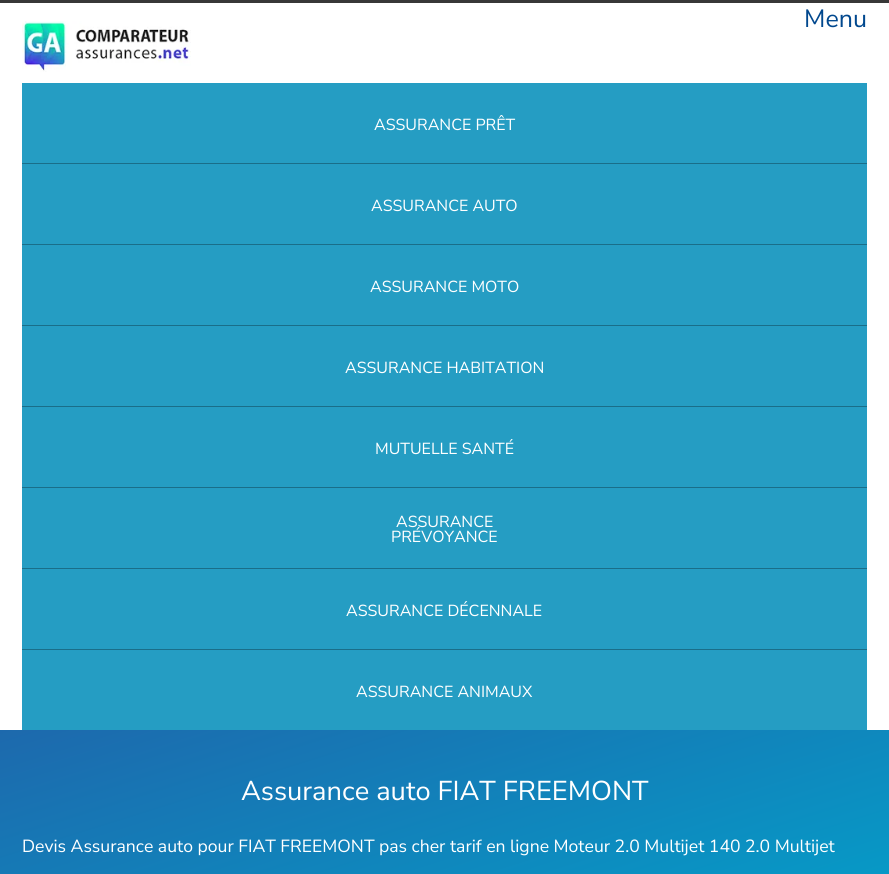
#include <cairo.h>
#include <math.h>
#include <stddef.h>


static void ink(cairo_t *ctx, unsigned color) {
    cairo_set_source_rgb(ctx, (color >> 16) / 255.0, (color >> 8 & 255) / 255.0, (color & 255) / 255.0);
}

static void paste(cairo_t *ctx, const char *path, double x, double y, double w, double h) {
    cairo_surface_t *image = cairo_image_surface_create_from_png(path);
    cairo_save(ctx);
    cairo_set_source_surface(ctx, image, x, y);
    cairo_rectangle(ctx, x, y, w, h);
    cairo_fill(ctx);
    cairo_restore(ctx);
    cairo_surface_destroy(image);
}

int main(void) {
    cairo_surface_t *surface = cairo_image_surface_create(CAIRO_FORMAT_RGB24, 889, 874);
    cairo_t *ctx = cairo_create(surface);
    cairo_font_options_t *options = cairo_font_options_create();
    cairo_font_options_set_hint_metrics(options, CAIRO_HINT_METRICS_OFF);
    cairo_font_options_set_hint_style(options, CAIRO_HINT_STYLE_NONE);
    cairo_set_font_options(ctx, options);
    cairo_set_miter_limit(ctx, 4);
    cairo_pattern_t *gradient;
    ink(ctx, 0xFFFFFF);
    cairo_paint(ctx);
    ink(ctx, 0x383838);
    cairo_rectangle(ctx, 0, 0, 889, 3);
    cairo_fill(ctx);
    paste(ctx, "media/1.png", 22, 21, 169, 51);
    cairo_select_font_face(ctx, "Nunito Sans", CAIRO_FONT_SLANT_NORMAL, CAIRO_FONT_WEIGHT_NORMAL);
    cairo_set_font_size(ctx, 25);
    ink(ctx, 0x01488E);
    cairo_move_to(ctx, 804, 27);
    cairo_show_text(ctx, "Menu");
    ink(ctx, 0x259DC3);
    cairo_rectangle(ctx, 22, 83, 845, 647);
    cairo_fill(ctx);
    cairo_set_font_size(ctx, 16);
    ink(ctx, 0xFFFFFF);
    cairo_move_to(ctx, 374, 130);
    cairo_show_text(ctx, "ASSURANCE PRÊT");
    ink(ctx, 0x1A6E89);
    cairo_rectangle(ctx, 22, 163, 845, 1);
    cairo_fill(ctx);
    ink(ctx, 0xFFFFFF);
    cairo_move_to(ctx, 371, 211);
    cairo_show_text(ctx, "ASSURANCE AUTO");
    ink(ctx, 0x1A6E89);
    cairo_rectangle(ctx, 22, 244, 845, 1);
    cairo_fill(ctx);
    ink(ctx, 0xFFFFFF);
    cairo_move_to(ctx, 370, 292);
    cairo_show_text(ctx, "ASSURANCE MOTO");
    ink(ctx, 0x1A6E89);
    cairo_rectangle(ctx, 22, 325, 845, 1);
    cairo_fill(ctx);
    ink(ctx, 0xFFFFFF);
    cairo_move_to(ctx, 345, 373);
    cairo_show_text(ctx, "ASSURANCE HABITATION");
    ink(ctx, 0x1A6E89);
    cairo_rectangle(ctx, 22, 406, 845, 1);
    cairo_fill(ctx);
    ink(ctx, 0xFFFFFF);
    cairo_move_to(ctx, 375, 454);
    cairo_show_text(ctx, "MUTUELLE SANTÉ");
    ink(ctx, 0x1A6E89);
    cairo_rectangle(ctx, 22, 487, 845, 1);
    cairo_fill(ctx);
    ink(ctx, 0xFFFFFF);
    cairo_move_to(ctx, 396, 527);
    cairo_show_text(ctx, "ASSURANCE");
    cairo_move_to(ctx, 391, 542);
    cairo_show_text(ctx, "PRÉVOYANCE");
    ink(ctx, 0x1A6E89);
    cairo_rectangle(ctx, 22, 568, 845, 1);
    cairo_fill(ctx);
    ink(ctx, 0xFFFFFF);
    cairo_move_to(ctx, 346, 616);
    cairo_show_text(ctx, "ASSURANCE DÉCENNALE");
    ink(ctx, 0x1A6E89);
    cairo_rectangle(ctx, 22, 649, 845, 1);
    cairo_fill(ctx);
    ink(ctx, 0xFFFFFF);
    cairo_move_to(ctx, 356, 697);
    cairo_show_text(ctx, "ASSURANCE ANIMAUX");
    gradient = cairo_pattern_create_linear(365, 616, 524, 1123);
    cairo_pattern_add_color_stop_rgba(gradient, 0, 0.114, 0.412, 0.678, 1);
    cairo_pattern_add_color_stop_rgba(gradient, 1, 0, 0.659, 0.808, 1);
    cairo_set_source(ctx, gradient);
    cairo_pattern_destroy(gradient);
    cairo_rectangle(ctx, 0, 730, 889, 144);
    cairo_fill(ctx);
    cairo_set_font_size(ctx, 27.25);
    ink(ctx, 0xFFFFFF);
    cairo_move_to(ctx, 241, 800);
    cairo_show_text(ctx, "Assurance auto FIAT FREEMONT");
    cairo_set_font_size(ctx, 17.6);
    cairo_move_to(ctx, 22, 852);
    cairo_show_text(ctx, "Devis Assurance auto pour FIAT FREEMONT pas cher tarif en ligne Moteur 2.0 Multijet 140 2.0 Multijet");
    cairo_surface_write_to_png(surface, "image.png");
    cairo_font_options_destroy(options);
    cairo_destroy(ctx);
    cairo_surface_destroy(surface);
    return 0;
}
